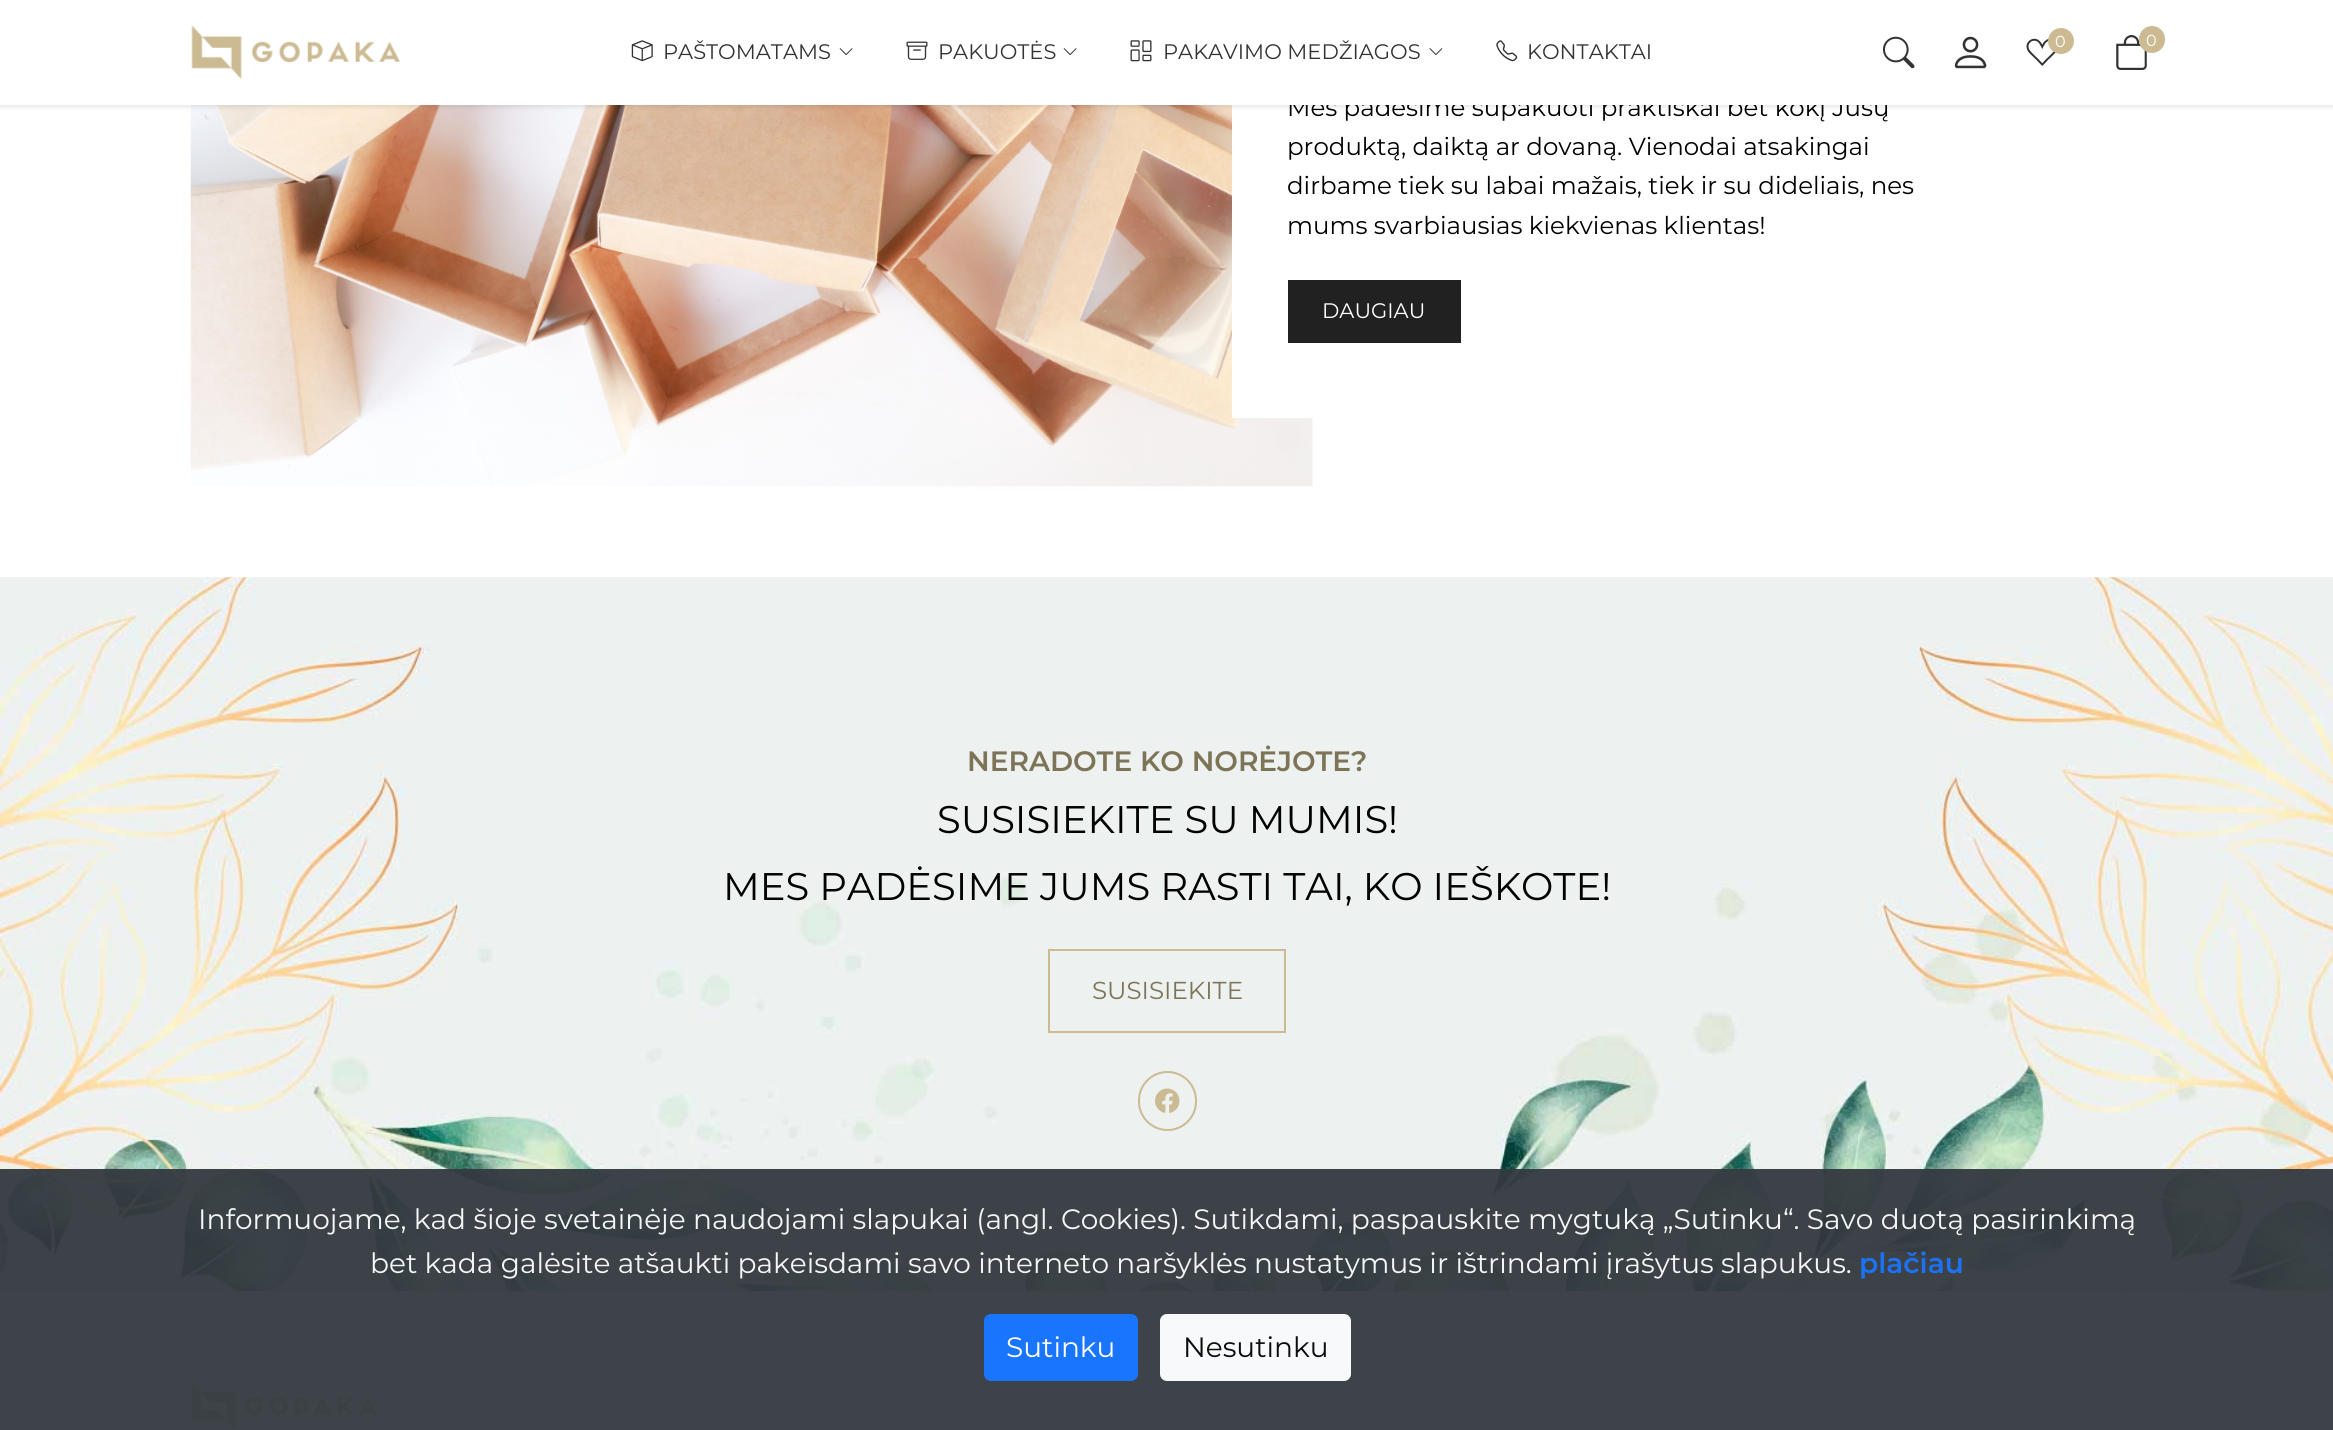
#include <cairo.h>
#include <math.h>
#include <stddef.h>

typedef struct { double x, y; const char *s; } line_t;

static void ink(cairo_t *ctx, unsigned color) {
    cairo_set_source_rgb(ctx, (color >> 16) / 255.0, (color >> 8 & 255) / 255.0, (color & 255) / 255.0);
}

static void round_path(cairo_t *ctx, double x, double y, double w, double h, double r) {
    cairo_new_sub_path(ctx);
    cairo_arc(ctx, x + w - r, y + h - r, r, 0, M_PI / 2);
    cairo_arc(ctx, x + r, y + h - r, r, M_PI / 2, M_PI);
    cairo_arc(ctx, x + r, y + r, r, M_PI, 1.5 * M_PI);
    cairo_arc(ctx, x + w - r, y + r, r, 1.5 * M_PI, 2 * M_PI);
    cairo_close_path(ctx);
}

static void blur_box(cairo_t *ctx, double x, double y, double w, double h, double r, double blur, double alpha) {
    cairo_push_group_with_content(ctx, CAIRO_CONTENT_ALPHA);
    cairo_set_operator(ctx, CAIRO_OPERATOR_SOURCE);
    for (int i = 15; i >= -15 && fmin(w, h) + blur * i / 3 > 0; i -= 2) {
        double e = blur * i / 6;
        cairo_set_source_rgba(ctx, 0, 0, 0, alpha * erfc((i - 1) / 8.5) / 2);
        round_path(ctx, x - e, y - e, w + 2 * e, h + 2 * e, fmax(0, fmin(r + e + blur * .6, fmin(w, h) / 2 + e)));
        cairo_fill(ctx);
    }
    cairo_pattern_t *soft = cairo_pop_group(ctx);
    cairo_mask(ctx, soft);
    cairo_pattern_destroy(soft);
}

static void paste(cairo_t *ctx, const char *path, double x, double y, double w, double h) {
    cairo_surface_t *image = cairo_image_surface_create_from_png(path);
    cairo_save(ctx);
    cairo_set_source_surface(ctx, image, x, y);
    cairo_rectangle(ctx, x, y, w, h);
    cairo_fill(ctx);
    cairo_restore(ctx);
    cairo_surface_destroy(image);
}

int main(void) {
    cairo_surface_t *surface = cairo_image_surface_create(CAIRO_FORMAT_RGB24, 2333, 1430);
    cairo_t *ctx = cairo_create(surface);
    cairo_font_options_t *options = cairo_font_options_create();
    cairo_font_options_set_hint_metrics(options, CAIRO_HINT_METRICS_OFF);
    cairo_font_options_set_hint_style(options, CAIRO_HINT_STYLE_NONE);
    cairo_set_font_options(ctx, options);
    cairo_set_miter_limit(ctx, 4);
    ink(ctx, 0xFFFFFF);
    cairo_paint(ctx);
    paste(ctx, "media/12.png", 190, 105, 1123, 382);
    ink(ctx, 0xFFFFFF);
    cairo_rectangle(ctx, 1232, 105, 81, 313);
    cairo_fill(ctx);
    ink(ctx, 0x000000);
    blur_box(ctx, 0, 2, 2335, 105, 0, 2.5, 0.1);
    cairo_select_font_face(ctx, "Montserrat Thin", CAIRO_FONT_SLANT_NORMAL, CAIRO_FONT_WEIGHT_NORMAL);
    cairo_set_font_size(ctx, 24.5);
    ink(ctx, 0x010101);
    cairo_move_to(ctx, 1287, 116);
    cairo_show_text(ctx, "Mes padėsime supakuoti praktiškai bet kokį Jūsų");
    ink(ctx, 0xFFFFFF);
    cairo_rectangle(ctx, 0, 0, 2333, 105);
    cairo_fill(ctx);
    paste(ctx, "media/1.png", 191, 25, 210, 54);
    paste(ctx, "media/2.png", 631, 40, 22, 22);
    cairo_set_font_size(ctx, 21);
    ink(ctx, 0x333333);
    cairo_move_to(ctx, 663, 59);
    cairo_show_text(ctx, "PAŠTOMATAMS");
    paste(ctx, "media/3.png", 839, 48, 14, 7);
    paste(ctx, "media/4.png", 906, 41, 22, 19);
    cairo_move_to(ctx, 938, 59);
    cairo_show_text(ctx, "PAKUOTĖS");
    paste(ctx, "media/3.png", 1063, 48, 14, 7);
    paste(ctx, "media/5.png", 1130, 40, 22, 22);
    cairo_move_to(ctx, 1163, 59);
    cairo_show_text(ctx, "PAKAVIMO MEDŽIAGOS");
    paste(ctx, "media/6.png", 1429, 48, 14, 7);
    paste(ctx, "media/7.png", 1496, 40, 22, 22);
    cairo_move_to(ctx, 1527, 59);
    cairo_show_text(ctx, "KONTAKTAI");
    paste(ctx, "media/8.png", 1883, 36, 32, 33);
    paste(ctx, "media/9.png", 1954, 36, 33, 33);
    paste(ctx, "media/10.png", 2026, 38, 30, 28);
    ink(ctx, 0xCCBA92);
    cairo_arc(ctx, 2061, 41, 13, 0, 2 * M_PI);
    cairo_fill(ctx);
    cairo_set_font_size(ctx, 16);
    ink(ctx, 0xFFFFFF);
    cairo_move_to(ctx, 2055, 47);
    cairo_show_text(ctx, "0");
    paste(ctx, "media/11.png", 2116, 35, 31, 35);
    ink(ctx, 0xCCBA92);
    round_path(ctx, 2139, 26, 26, 27, 13);
    cairo_fill(ctx);
    ink(ctx, 0xFFFFFF);
    cairo_move_to(ctx, 2146, 46);
    cairo_show_text(ctx, "0");
    cairo_set_font_size(ctx, 24.5);
    ink(ctx, 0x010101);
    {
        static const line_t items[] = {
            {1287, 155, "produktą, daiktą ar dovaną. Vienodai atsakingai"},
            {1287, 194, "dirbame tiek su labai mažais, tiek ir su dideliais, nes"},
            {1287, 234, "mums svarbiausias kiekvienas klientas!"},
        };
        for (size_t i = 0; i < sizeof items / sizeof *items; i++) {
            cairo_move_to(ctx, items[i].x, items[i].y);
            cairo_show_text(ctx, items[i].s);
        }
    }
    ink(ctx, 0x212121);
    cairo_rectangle(ctx, 1288, 280, 173, 63);
    cairo_fill(ctx);
    cairo_set_font_size(ctx, 21);
    ink(ctx, 0xFFFFFF);
    cairo_move_to(ctx, 1322, 318);
    cairo_show_text(ctx, "DAUGIAU");
    paste(ctx, "media/13.png", 0, 577, 2333, 715);
    cairo_select_font_face(ctx, "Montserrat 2 Thin", CAIRO_FONT_SLANT_NORMAL, CAIRO_FONT_WEIGHT_NORMAL);
    cairo_set_font_size(ctx, 28);
    ink(ctx, 0x7D7457);
    cairo_move_to(ctx, 967, 771);
    cairo_show_text(ctx, "NERADOTE KO NORĖJOTE?");
    cairo_select_font_face(ctx, "Montserrat Thin", CAIRO_FONT_SLANT_NORMAL, CAIRO_FONT_WEIGHT_NORMAL);
    cairo_set_font_size(ctx, 38.5);
    ink(ctx, 0x010101);
    cairo_move_to(ctx, 937, 833);
    cairo_show_text(ctx, "SUSISIEKITE SU MUMIS!");
    cairo_move_to(ctx, 723, 900);
    cairo_show_text(ctx, "MES PADĖSIME JUMS RASTI TAI, KO IEŠKOTE!");
    cairo_rectangle(ctx, 1049, 950, 236, 82);
    ink(ctx, 0xCCBA92);
    cairo_stroke(ctx);
    cairo_set_font_size(ctx, 24.5);
    ink(ctx, 0x7D7457);
    cairo_move_to(ctx, 1092, 999);
    cairo_show_text(ctx, "SUSISIEKITE");
    round_path(ctx, 1139, 1072, 57, 58, 28.5);
    ink(ctx, 0xCCBA92);
    cairo_stroke(ctx);
    paste(ctx, "media/14.png", 1155, 1088, 25, 25);
    ink(ctx, 0xF9F9F9);
    cairo_rectangle(ctx, 0, 1292, 2333, 138);
    cairo_fill(ctx);
    paste(ctx, "media/15.png", 191, 1382, 187, 48);
    cairo_set_source_rgba(ctx, 0.204, 0.227, 0.251, 0.95);
    cairo_rectangle(ctx, 0, 1169, 2333, 261);
    cairo_fill(ctx);
    cairo_set_font_size(ctx, 28);
    ink(ctx, 0xF5F6F6);
    cairo_move_to(ctx, 198, 1229);
    cairo_show_text(ctx, "Informuojame, kad šioje svetainėje naudojami slapukai (angl. Cookies). Sutikdami, paspauskite mygtuką „Sutinku“. Savo duotą pasirinkimą");
    cairo_move_to(ctx, 370, 1273);
    cairo_show_text(ctx, "bet kada galėsite atšaukti pakeisdami savo interneto naršyklės nustatymus ir ištrindami įrašytus slapukus.");
    cairo_select_font_face(ctx, "Montserrat 2 Thin", CAIRO_FONT_SLANT_NORMAL, CAIRO_FONT_WEIGHT_NORMAL);
    ink(ctx, 0x1B72F4);
    cairo_move_to(ctx, 1859, 1273);
    cairo_show_text(ctx, "plačiau");
    ink(ctx, 0x1975FD);
    round_path(ctx, 984, 1314, 154, 67, 7);
    cairo_fill(ctx);
    cairo_select_font_face(ctx, "Montserrat Thin", CAIRO_FONT_SLANT_NORMAL, CAIRO_FONT_WEIGHT_NORMAL);
    ink(ctx, 0xFFFFFF);
    cairo_move_to(ctx, 1006, 1357);
    cairo_show_text(ctx, "Sutinku");
    ink(ctx, 0xF8F9FA);
    round_path(ctx, 1161, 1315, 189, 65, 6);
    cairo_fill_preserve(ctx);
    cairo_stroke(ctx);
    ink(ctx, 0x0C0C0C);
    cairo_move_to(ctx, 1183, 1357);
    cairo_show_text(ctx, "Nesutinku");
    cairo_surface_write_to_png(surface, "image.png");
    cairo_font_options_destroy(options);
    cairo_destroy(ctx);
    cairo_surface_destroy(surface);
    return 0;
}
